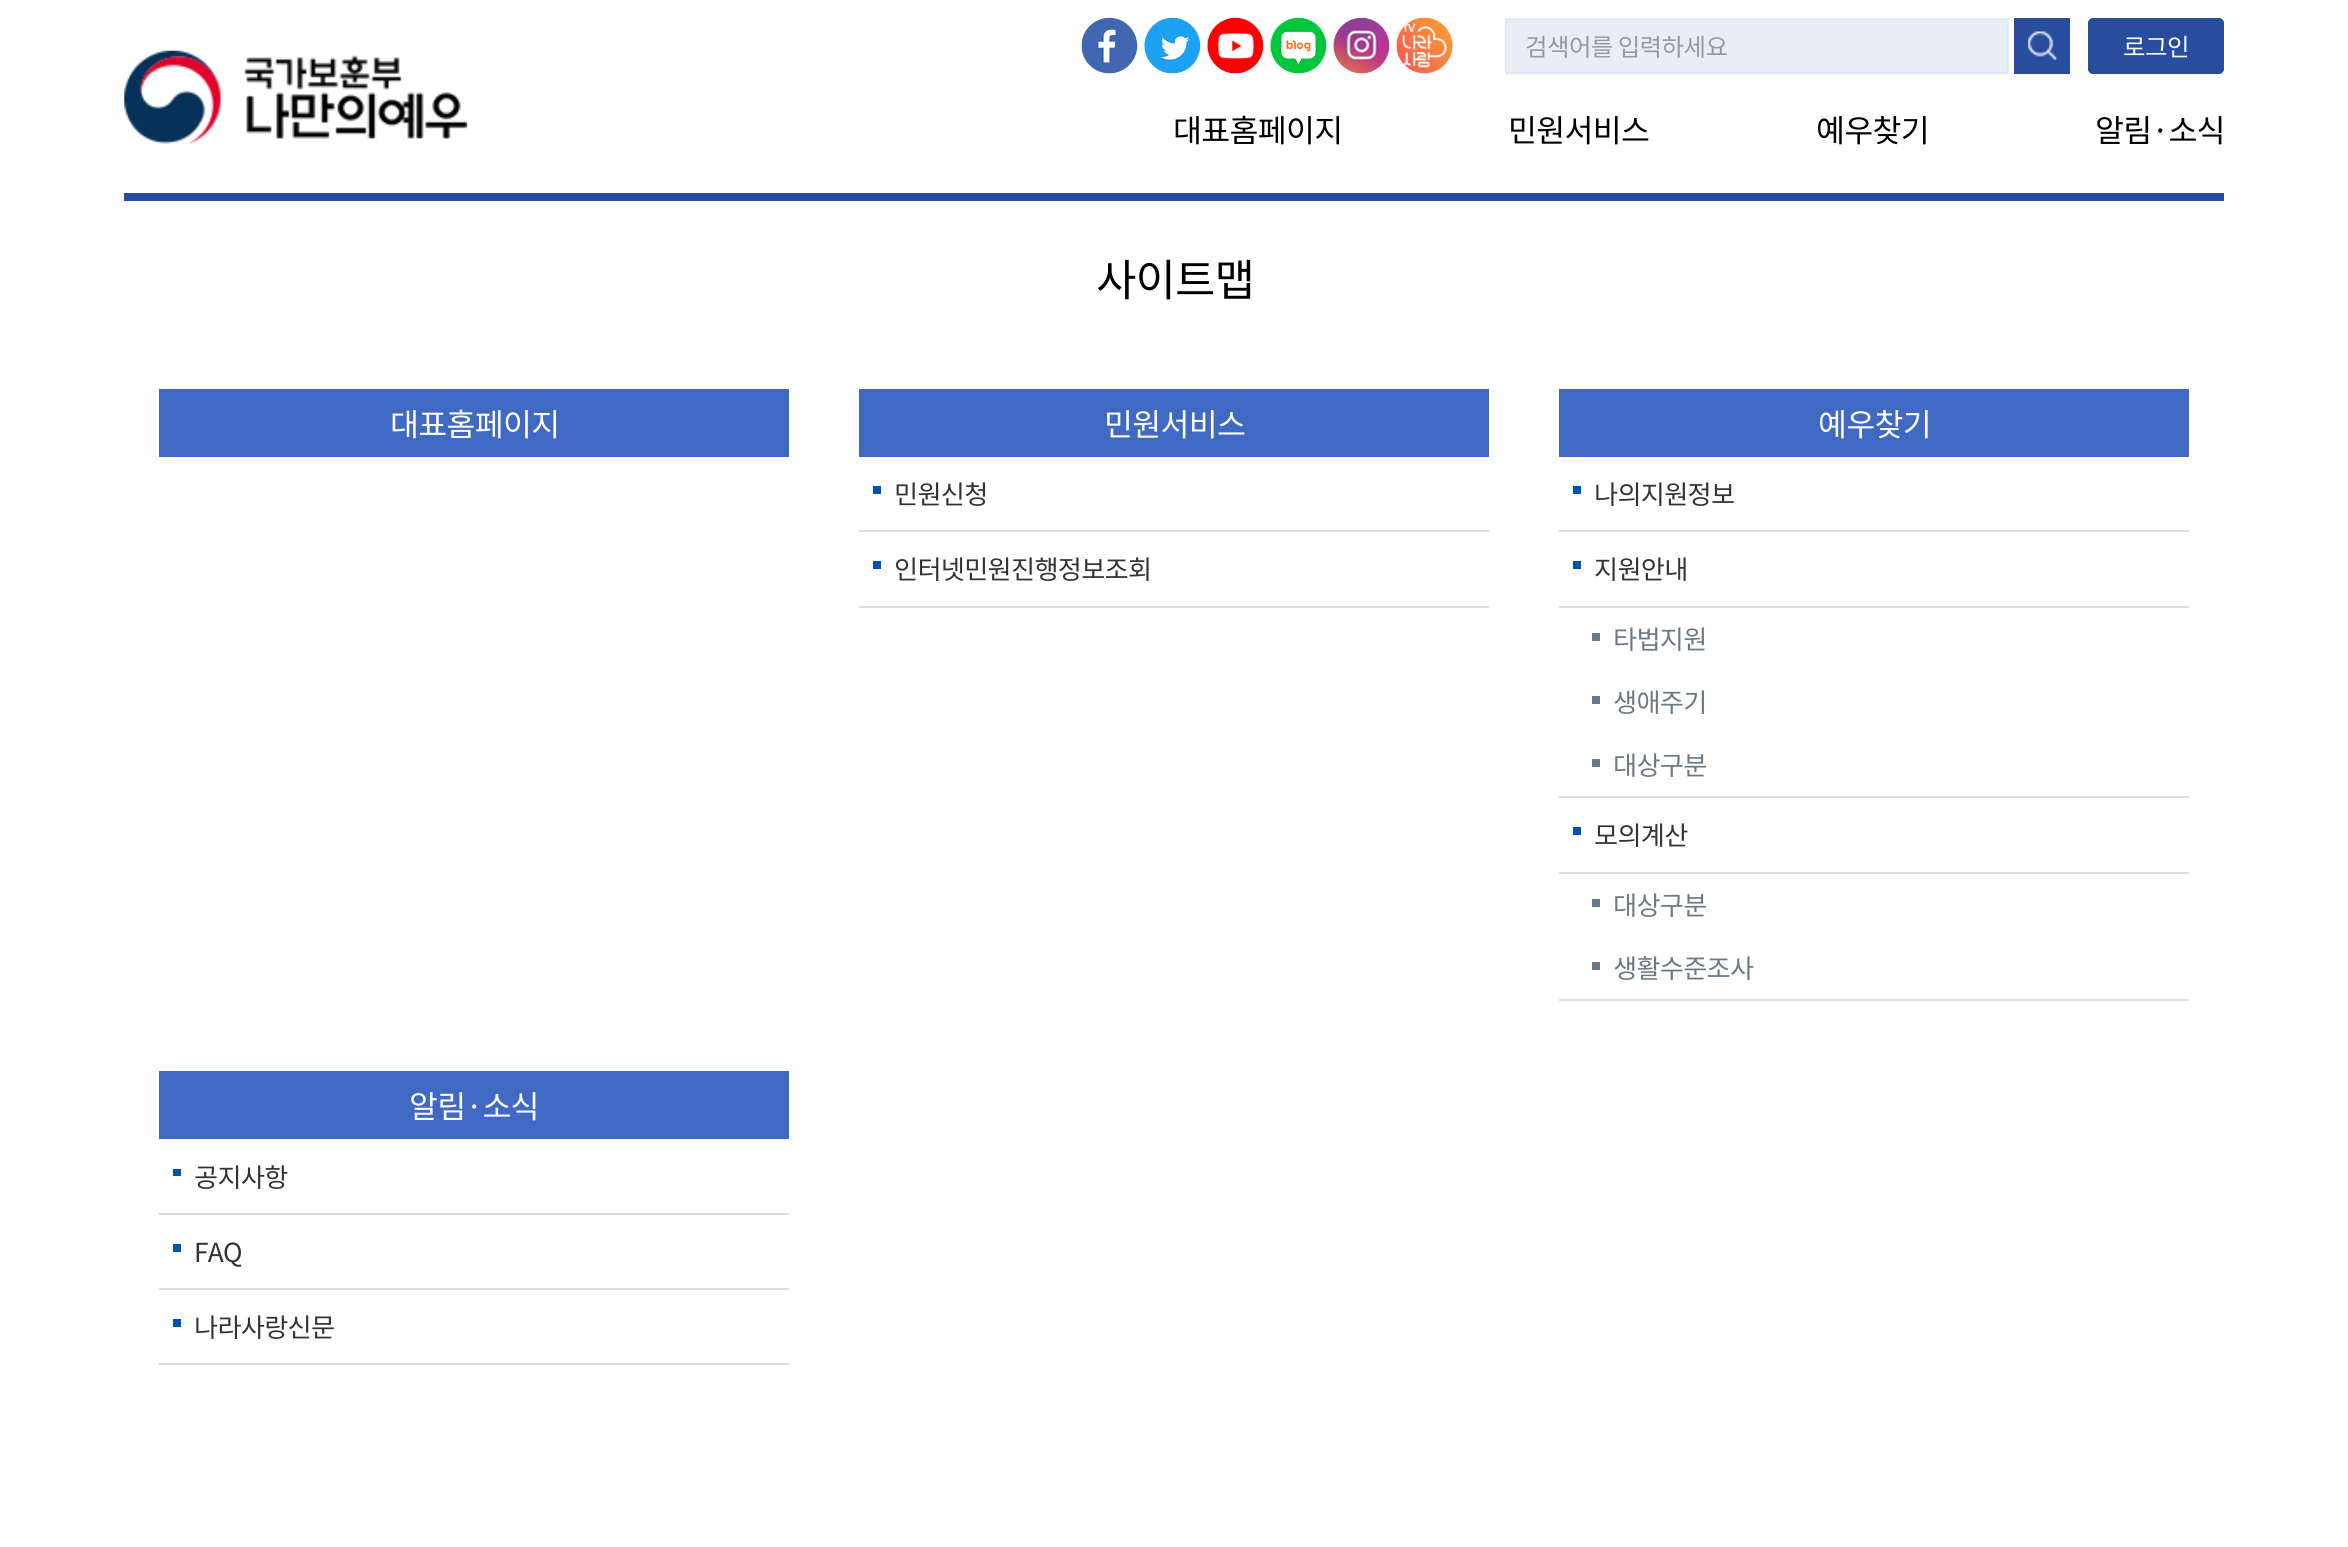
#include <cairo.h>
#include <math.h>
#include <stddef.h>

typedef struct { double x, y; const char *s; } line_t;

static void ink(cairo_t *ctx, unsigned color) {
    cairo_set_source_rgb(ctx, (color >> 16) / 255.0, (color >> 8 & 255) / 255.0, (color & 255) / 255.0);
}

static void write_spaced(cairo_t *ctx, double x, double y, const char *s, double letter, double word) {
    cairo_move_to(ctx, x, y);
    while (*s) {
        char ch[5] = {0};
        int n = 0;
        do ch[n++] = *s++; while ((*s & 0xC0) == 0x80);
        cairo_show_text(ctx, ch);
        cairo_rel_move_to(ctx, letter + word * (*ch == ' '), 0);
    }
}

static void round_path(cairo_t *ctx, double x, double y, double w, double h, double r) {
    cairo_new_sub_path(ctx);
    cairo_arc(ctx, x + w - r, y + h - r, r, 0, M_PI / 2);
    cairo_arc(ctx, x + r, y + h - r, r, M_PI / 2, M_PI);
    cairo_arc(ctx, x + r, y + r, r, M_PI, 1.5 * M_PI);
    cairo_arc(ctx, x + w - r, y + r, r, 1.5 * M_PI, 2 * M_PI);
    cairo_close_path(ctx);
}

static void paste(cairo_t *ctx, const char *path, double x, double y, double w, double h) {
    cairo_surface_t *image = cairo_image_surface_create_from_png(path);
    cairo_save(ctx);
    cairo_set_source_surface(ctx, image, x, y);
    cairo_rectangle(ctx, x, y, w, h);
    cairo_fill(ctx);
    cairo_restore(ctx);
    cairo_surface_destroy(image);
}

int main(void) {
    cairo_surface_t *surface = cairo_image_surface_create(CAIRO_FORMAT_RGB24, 2348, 1547);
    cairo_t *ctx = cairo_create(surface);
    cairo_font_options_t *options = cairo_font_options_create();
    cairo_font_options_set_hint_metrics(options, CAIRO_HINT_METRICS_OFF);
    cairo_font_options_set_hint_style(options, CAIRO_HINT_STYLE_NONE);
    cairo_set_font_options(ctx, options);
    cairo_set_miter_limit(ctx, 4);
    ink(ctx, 0xFFFFFF);
    cairo_paint(ctx);
    paste(ctx, "media/1.png", 1081, 17, 57, 57);
    paste(ctx, "media/2.png", 1144, 17, 57, 57);
    paste(ctx, "media/3.png", 1207, 17, 57, 57);
    paste(ctx, "media/4.png", 1270, 17, 57, 57);
    paste(ctx, "media/5.png", 1333, 17, 57, 57);
    paste(ctx, "media/6.png", 1396, 17, 57, 57);
    ink(ctx, 0xE7EEF6);
    cairo_rectangle(ctx, 1506, 19, 502, 54);
    cairo_fill_preserve(ctx);
    ink(ctx, 0xDEE8F8);
    cairo_stroke(ctx);
    cairo_select_font_face(ctx, "Noto Sans KR", CAIRO_FONT_SLANT_NORMAL, CAIRO_FONT_WEIGHT_NORMAL);
    cairo_set_font_size(ctx, 24.5);
    ink(ctx, 0x999999);
    write_spaced(ctx, 1525, 56, "검색어를 입력하세요", -0.6, 0);
    ink(ctx, 0x284D9E);
    cairo_rectangle(ctx, 2014, 18, 56, 56);
    cairo_fill(ctx);
    paste(ctx, "media/7.png", 2028, 31, 29, 29);
    round_path(ctx, 2088, 18, 136, 56, 5);
    cairo_fill(ctx);
    ink(ctx, 0xFFFFFF);
    write_spaced(ctx, 2123, 56, "로그인", -0.6, 0);
    paste(ctx, "media/8.png", 124, 50, 344, 94);
    cairo_set_font_size(ctx, 31.5);
    ink(ctx, 0x000000);
    {
        static const line_t items[] = {
            {1173, 142, "대표홈페이지"},
            {1508, 142, "민원서비스"},
            {1816, 142, "예우찾기"},
            {2095, 142, "알림·소식"},
        };
        for (size_t i = 0; i < sizeof items / sizeof *items; i++) {
            write_spaced(ctx, items[i].x, items[i].y, items[i].s, -0.75, 0);
        }
    }
    ink(ctx, 0x284D9E);
    cairo_rectangle(ctx, 124, 193, 2100, 8);
    cairo_fill(ctx);
    cairo_set_font_size(ctx, 44);
    ink(ctx, 0x000000);
    write_spaced(ctx, 1096, 296, "사이트맵", -1, 0);
    ink(ctx, 0x4069C3);
    cairo_rectangle(ctx, 159, 389, 630, 68);
    cairo_fill(ctx);
    cairo_set_font_size(ctx, 31.5);
    ink(ctx, 0xFFFFFF);
    write_spaced(ctx, 390, 436, "대표홈페이지", -0.75, 0);
    ink(ctx, 0x4069C3);
    cairo_rectangle(ctx, 859, 389, 630, 68);
    cairo_fill(ctx);
    ink(ctx, 0xFFFFFF);
    write_spaced(ctx, 1104, 436, "민원서비스", -0.75, 0);
    ink(ctx, 0x0054AF);
    cairo_rectangle(ctx, 873, 486, 8, 8);
    cairo_fill(ctx);
    ink(ctx, 0xDDDDDD);
    cairo_rectangle(ctx, 859, 530, 630, 2);
    cairo_fill(ctx);
    cairo_set_font_size(ctx, 26.25);
    ink(ctx, 0x333333);
    write_spaced(ctx, 894, 504, "민원신청", -0.75, 0);
    ink(ctx, 0x0054AF);
    cairo_rectangle(ctx, 873, 561, 8, 8);
    cairo_fill(ctx);
    ink(ctx, 0xDDDDDD);
    cairo_rectangle(ctx, 859, 606, 630, 2);
    cairo_fill(ctx);
    ink(ctx, 0x333333);
    write_spaced(ctx, 894, 579, "인터넷민원진행정보조회", -0.75, 0);
    ink(ctx, 0x4069C3);
    cairo_rectangle(ctx, 1559, 389, 630, 68);
    cairo_fill(ctx);
    cairo_set_font_size(ctx, 31.5);
    ink(ctx, 0xFFFFFF);
    write_spaced(ctx, 1818, 436, "예우찾기", -0.75, 0);
    ink(ctx, 0x0054AF);
    cairo_rectangle(ctx, 1573, 486, 8, 8);
    cairo_fill(ctx);
    ink(ctx, 0xDDDDDD);
    cairo_rectangle(ctx, 1559, 530, 630, 2);
    cairo_fill(ctx);
    cairo_set_font_size(ctx, 26.25);
    ink(ctx, 0x333333);
    write_spaced(ctx, 1594, 504, "나의지원정보", -0.75, 0);
    ink(ctx, 0x0054AF);
    cairo_rectangle(ctx, 1573, 561, 8, 8);
    cairo_fill(ctx);
    ink(ctx, 0xDDDDDD);
    cairo_rectangle(ctx, 1559, 606, 630, 2);
    cairo_fill(ctx);
    ink(ctx, 0x333333);
    write_spaced(ctx, 1594, 579, "지원안내", -0.75, 0);
    ink(ctx, 0x6B7986);
    cairo_rectangle(ctx, 1592, 633, 8, 8);
    cairo_fill(ctx);
    write_spaced(ctx, 1613, 649, "타법지원", -0.75, 0);
    cairo_rectangle(ctx, 1592, 696, 8, 8);
    cairo_fill(ctx);
    write_spaced(ctx, 1613, 712, "생애주기", -0.75, 0);
    cairo_rectangle(ctx, 1592, 759, 8, 8);
    cairo_fill(ctx);
    ink(ctx, 0xDDDDDD);
    cairo_rectangle(ctx, 1559, 796, 630, 2);
    cairo_fill(ctx);
    ink(ctx, 0x6B7986);
    write_spaced(ctx, 1613, 775, "대상구분", -0.75, 0);
    ink(ctx, 0x0054AF);
    cairo_rectangle(ctx, 1573, 827, 8, 8);
    cairo_fill(ctx);
    ink(ctx, 0xDDDDDD);
    cairo_rectangle(ctx, 1559, 872, 630, 2);
    cairo_fill(ctx);
    ink(ctx, 0x333333);
    write_spaced(ctx, 1594, 845, "모의계산", -0.75, 0);
    ink(ctx, 0x6B7986);
    cairo_rectangle(ctx, 1592, 899, 8, 8);
    cairo_fill(ctx);
    write_spaced(ctx, 1613, 915, "대상구분", -0.75, 0);
    cairo_rectangle(ctx, 1592, 962, 8, 8);
    cairo_fill(ctx);
    ink(ctx, 0xDDDDDD);
    cairo_rectangle(ctx, 1559, 999, 630, 2);
    cairo_fill(ctx);
    ink(ctx, 0x6B7986);
    write_spaced(ctx, 1613, 978, "생활수준조사", -0.75, 0);
    ink(ctx, 0x4069C3);
    cairo_rectangle(ctx, 159, 1071, 630, 68);
    cairo_fill(ctx);
    cairo_set_font_size(ctx, 31.5);
    ink(ctx, 0xFFFFFF);
    write_spaced(ctx, 409, 1118, "알림·소식", -0.75, 0);
    ink(ctx, 0x0054AF);
    cairo_rectangle(ctx, 173, 1169, 8, 7);
    cairo_fill(ctx);
    ink(ctx, 0xDDDDDD);
    cairo_rectangle(ctx, 159, 1213, 630, 2);
    cairo_fill(ctx);
    cairo_set_font_size(ctx, 26.25);
    ink(ctx, 0x333333);
    write_spaced(ctx, 194, 1187, "공지사항", -0.75, 0);
    ink(ctx, 0x0054AF);
    cairo_rectangle(ctx, 173, 1244, 8, 8);
    cairo_fill(ctx);
    ink(ctx, 0xDDDDDD);
    cairo_rectangle(ctx, 159, 1288, 630, 2);
    cairo_fill(ctx);
    ink(ctx, 0x333333);
    write_spaced(ctx, 194, 1262, "FAQ", -0.75, 0);
    ink(ctx, 0x0054AF);
    cairo_rectangle(ctx, 173, 1319, 8, 8);
    cairo_fill(ctx);
    ink(ctx, 0xDDDDDD);
    cairo_rectangle(ctx, 159, 1363, 630, 2);
    cairo_fill(ctx);
    ink(ctx, 0x333333);
    write_spaced(ctx, 194, 1337, "나라사랑신문", -0.75, 0);
    cairo_surface_write_to_png(surface, "image.png");
    cairo_font_options_destroy(options);
    cairo_destroy(ctx);
    cairo_surface_destroy(surface);
    return 0;
}
